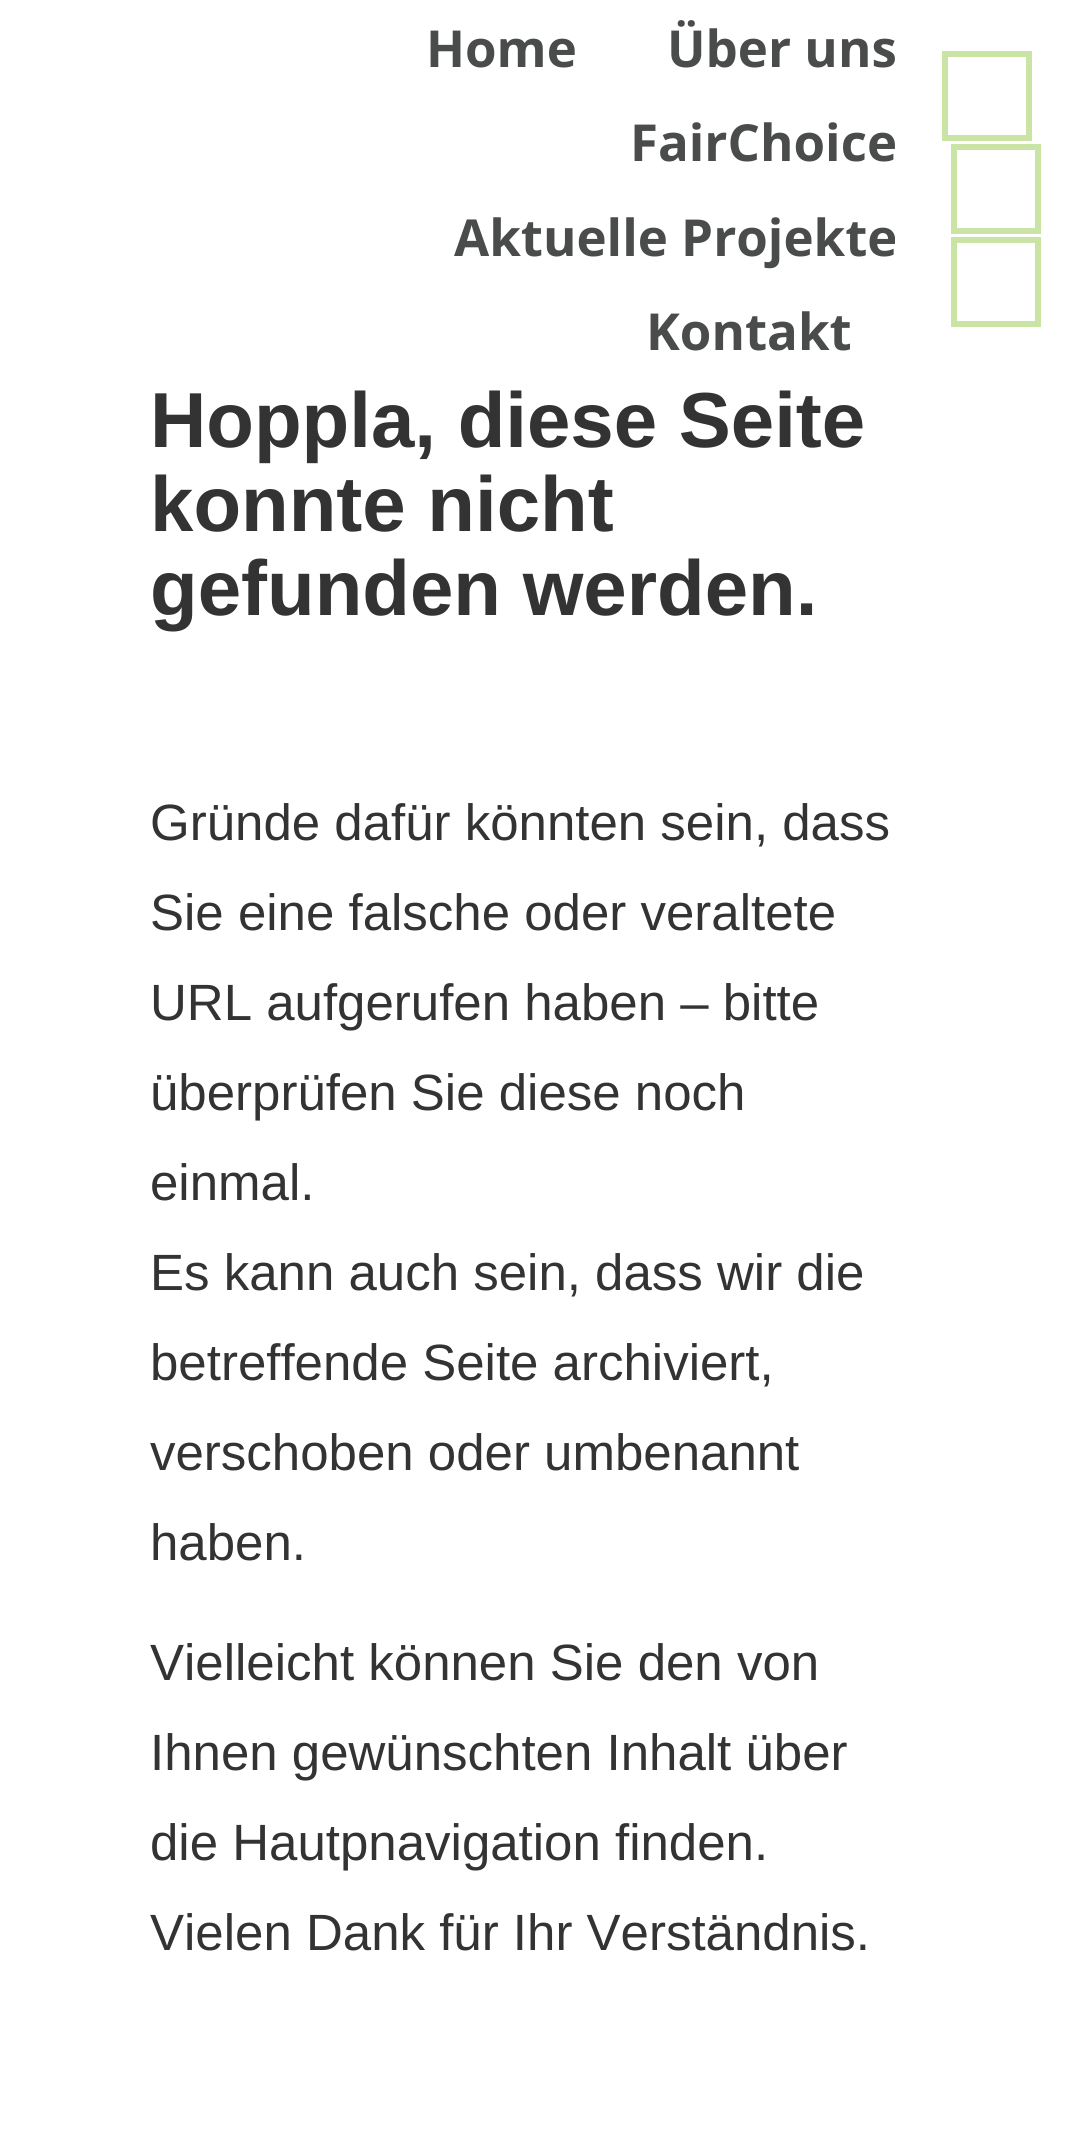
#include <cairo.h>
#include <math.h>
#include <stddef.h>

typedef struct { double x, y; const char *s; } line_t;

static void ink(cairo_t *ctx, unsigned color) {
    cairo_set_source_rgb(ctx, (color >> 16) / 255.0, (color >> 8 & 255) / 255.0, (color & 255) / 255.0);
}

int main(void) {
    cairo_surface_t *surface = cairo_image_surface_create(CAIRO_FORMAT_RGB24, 1071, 2142);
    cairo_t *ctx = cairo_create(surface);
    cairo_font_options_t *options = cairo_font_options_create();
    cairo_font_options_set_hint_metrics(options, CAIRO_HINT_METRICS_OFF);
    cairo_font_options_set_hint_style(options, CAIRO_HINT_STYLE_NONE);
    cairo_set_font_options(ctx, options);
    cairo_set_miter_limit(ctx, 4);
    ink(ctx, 0xFFFFFF);
    cairo_paint(ctx);
    cairo_select_font_face(ctx, "Open Sans", CAIRO_FONT_SLANT_NORMAL, CAIRO_FONT_WEIGHT_BOLD);
    cairo_set_font_size(ctx, 51);
    ink(ctx, 0x4A4C4C);
    {
        static const line_t items[] = {
            {426, 67, "Home"},
            {667, 67, "Über uns"},
            {630, 161, "FairChoice"},
            {454, 256, "Aktuelle Projekte"},
            {646, 350, "Kontakt"},
        };
        for (size_t i = 0; i < sizeof items / sizeof *items; i++) {
            cairo_move_to(ctx, items[i].x, items[i].y);
            cairo_show_text(ctx, items[i].s);
        }
    }
    cairo_rectangle(ctx, 945, 54, 84, 84);
    ink(ctx, 0xC9E4A5);
    cairo_set_line_width(ctx, 6);
    cairo_stroke(ctx);
    cairo_rectangle(ctx, 954, 147, 84, 84);
    cairo_stroke(ctx);
    cairo_rectangle(ctx, 954, 240, 84, 84);
    cairo_stroke(ctx);
    cairo_select_font_face(ctx, "Liberation Sans", CAIRO_FONT_SLANT_NORMAL, CAIRO_FONT_WEIGHT_BOLD);
    cairo_set_font_size(ctx, 78);
    ink(ctx, 0x333333);
    {
        static const line_t items[] = {
            {150, 447, "Hoppla, diese Seite"},
            {150, 531, "konnte nicht"},
            {150, 615, "gefunden werden."},
        };
        for (size_t i = 0; i < sizeof items / sizeof *items; i++) {
            cairo_move_to(ctx, items[i].x, items[i].y);
            cairo_show_text(ctx, items[i].s);
        }
    }
    cairo_select_font_face(ctx, "Liberation Sans", CAIRO_FONT_SLANT_NORMAL, CAIRO_FONT_WEIGHT_NORMAL);
    cairo_set_font_size(ctx, 51);
    {
        static const line_t items[] = {
            {150, 840, "Gründe dafür könnten sein, dass"},
            {150, 930, "Sie eine falsche oder veraltete"},
            {150, 1020, "URL aufgerufen haben – bitte"},
            {150, 1110, "überprüfen Sie diese noch"},
            {150, 1200, "einmal."},
            {150, 1290, "Es kann auch sein, dass wir die"},
            {150, 1380, "betreffende Seite archiviert,"},
            {150, 1470, "verschoben oder umbenannt"},
            {150, 1560, "haben."},
            {150, 1680, "Vielleicht können Sie den von"},
            {150, 1770, "Ihnen gewünschten Inhalt über"},
            {150, 1860, "die Hautpnavigation finden."},
            {150, 1950, "Vielen Dank für Ihr Verständnis."},
        };
        for (size_t i = 0; i < sizeof items / sizeof *items; i++) {
            cairo_move_to(ctx, items[i].x, items[i].y);
            cairo_show_text(ctx, items[i].s);
        }
    }
    cairo_surface_write_to_png(surface, "image.png");
    cairo_font_options_destroy(options);
    cairo_destroy(ctx);
    cairo_surface_destroy(surface);
    return 0;
}
